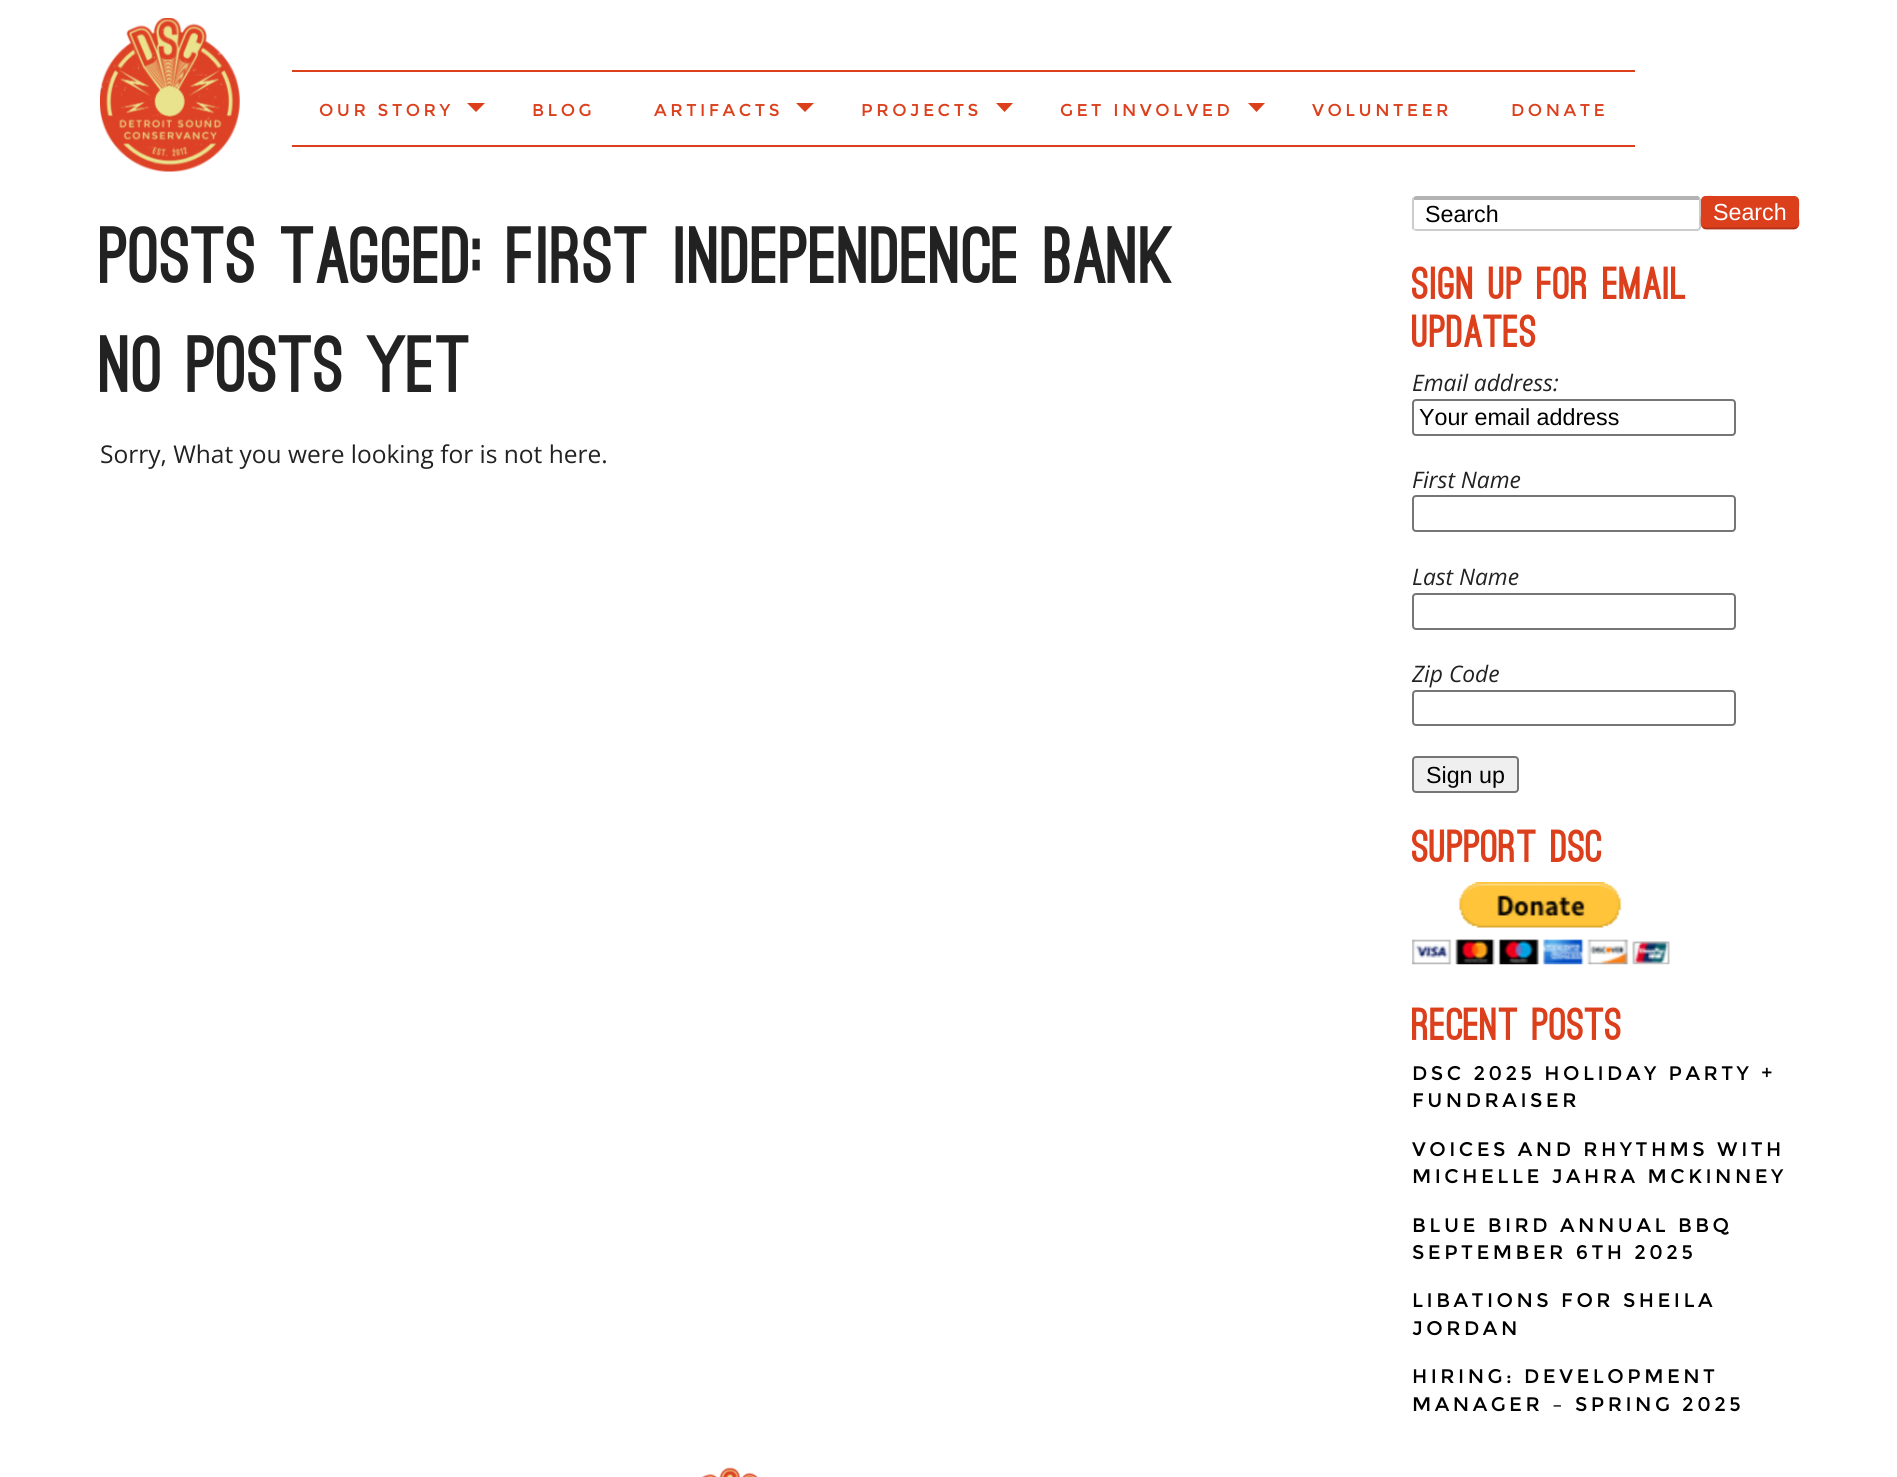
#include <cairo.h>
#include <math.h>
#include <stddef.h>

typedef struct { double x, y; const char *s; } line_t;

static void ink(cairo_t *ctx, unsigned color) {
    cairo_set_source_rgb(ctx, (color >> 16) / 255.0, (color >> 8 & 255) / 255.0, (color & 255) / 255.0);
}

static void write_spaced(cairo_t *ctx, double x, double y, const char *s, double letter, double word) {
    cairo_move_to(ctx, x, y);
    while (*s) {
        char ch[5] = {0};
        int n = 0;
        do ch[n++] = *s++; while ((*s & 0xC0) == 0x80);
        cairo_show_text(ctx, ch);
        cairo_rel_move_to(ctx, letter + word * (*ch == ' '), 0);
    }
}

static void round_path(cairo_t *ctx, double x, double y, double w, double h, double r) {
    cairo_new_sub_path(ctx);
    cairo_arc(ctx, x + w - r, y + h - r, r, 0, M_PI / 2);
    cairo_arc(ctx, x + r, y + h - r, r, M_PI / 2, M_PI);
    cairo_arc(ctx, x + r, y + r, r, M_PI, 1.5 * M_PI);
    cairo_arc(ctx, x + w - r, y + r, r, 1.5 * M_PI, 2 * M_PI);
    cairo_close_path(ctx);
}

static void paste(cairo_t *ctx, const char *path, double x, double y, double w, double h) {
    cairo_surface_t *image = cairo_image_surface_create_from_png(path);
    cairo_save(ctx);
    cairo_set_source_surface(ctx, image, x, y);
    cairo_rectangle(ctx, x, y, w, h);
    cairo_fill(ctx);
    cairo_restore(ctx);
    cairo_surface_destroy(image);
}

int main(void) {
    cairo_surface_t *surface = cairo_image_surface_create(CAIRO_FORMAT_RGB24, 1897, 1477);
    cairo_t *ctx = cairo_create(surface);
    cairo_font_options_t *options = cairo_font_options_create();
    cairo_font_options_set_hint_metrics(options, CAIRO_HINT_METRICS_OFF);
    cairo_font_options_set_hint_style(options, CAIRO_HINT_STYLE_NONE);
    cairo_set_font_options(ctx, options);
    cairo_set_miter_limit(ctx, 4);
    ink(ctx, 0xFFFFFF);
    cairo_paint(ctx);
    paste(ctx, "media/1.png", 100, 18, 140, 154);
    ink(ctx, 0xDC3F1C);
    cairo_rectangle(ctx, 292, 70, 1343, 2);
    cairo_fill(ctx);
    cairo_rectangle(ctx, 292, 145, 1343, 2);
    cairo_fill(ctx);
    cairo_select_font_face(ctx, "Montserrat", CAIRO_FONT_SLANT_NORMAL, CAIRO_FONT_WEIGHT_NORMAL);
    cairo_set_font_size(ctx, 17.1);
    write_spaced(ctx, 319, 116, "OUR STORY", 3.5, 0);
    cairo_new_path(ctx);
    cairo_move_to(ctx, 467, 103);
    cairo_line_to(ctx, 485, 103);
    cairo_line_to(ctx, 476, 112);
    cairo_close_path(ctx);
    cairo_fill(ctx);
    write_spaced(ctx, 532, 116, "BLOG", 3.5, 0);
    write_spaced(ctx, 654, 116, "ARTIFACTS", 3.5, 0);
    cairo_new_path(ctx);
    cairo_move_to(ctx, 796, 103);
    cairo_line_to(ctx, 814, 103);
    cairo_line_to(ctx, 805, 112);
    cairo_close_path(ctx);
    cairo_fill(ctx);
    write_spaced(ctx, 861, 116, "PROJECTS", 3.5, 0);
    cairo_new_path(ctx);
    cairo_move_to(ctx, 996, 103);
    cairo_line_to(ctx, 1013, 103);
    cairo_line_to(ctx, 1004.5, 112);
    cairo_close_path(ctx);
    cairo_fill(ctx);
    write_spaced(ctx, 1060, 116, "GET INVOLVED", 3.5, 0);
    cairo_new_path(ctx);
    cairo_move_to(ctx, 1248, 103);
    cairo_line_to(ctx, 1265, 103);
    cairo_line_to(ctx, 1256.5, 112);
    cairo_close_path(ctx);
    cairo_fill(ctx);
    write_spaced(ctx, 1312, 116, "VOLUNTEER", 3.5, 0);
    write_spaced(ctx, 1511, 116, "DONATE", 3.5, 0);
    cairo_select_font_face(ctx, "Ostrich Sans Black", CAIRO_FONT_SLANT_NORMAL, CAIRO_FONT_WEIGHT_NORMAL);
    cairo_set_font_size(ctx, 77);
    ink(ctx, 0x222222);
    cairo_move_to(ctx, 100, 283);
    cairo_show_text(ctx, "Posts Tagged: First Independence Bank");
    cairo_move_to(ctx, 100, 392);
    cairo_show_text(ctx, "No Posts Yet");
    cairo_select_font_face(ctx, "Open Sans", CAIRO_FONT_SLANT_NORMAL, CAIRO_FONT_WEIGHT_NORMAL);
    cairo_set_font_size(ctx, 24.5);
    cairo_move_to(ctx, 100, 463);
    cairo_show_text(ctx, "Sorry, What you were looking for is not here.");
    ink(ctx, 0xB3B3B3);
    cairo_new_path(ctx);
    cairo_move_to(ctx, 1416, 196);
    cairo_curve_to(ctx, 1415, 196, 1414, 197, 1413, 198);
    cairo_line_to(ctx, 1414, 200);
    cairo_line_to(ctx, 1699, 200);
    cairo_line_to(ctx, 1700, 198);
    cairo_line_to(ctx, 1698, 196);
    cairo_close_path(ctx);
    cairo_fill(ctx);
    ink(ctx, 0xCCCCCC);
    cairo_new_path(ctx);
    cairo_move_to(ctx, 1701, 228);
    cairo_line_to(ctx, 1701, 200);
    cairo_curve_to(ctx, 1701, 199, 1700.5, 198.5, 1700, 197.5);
    cairo_line_to(ctx, 1699, 200);
    cairo_line_to(ctx, 1699, 228);
    cairo_line_to(ctx, 1698.5, 228.5);
    cairo_line_to(ctx, 1700, 230);
    cairo_close_path(ctx);
    cairo_fill(ctx);
    cairo_new_path(ctx);
    cairo_move_to(ctx, 1416, 231);
    cairo_line_to(ctx, 1698, 231);
    cairo_line_to(ctx, 1700, 230);
    cairo_line_to(ctx, 1698, 228);
    cairo_line_to(ctx, 1698, 229);
    cairo_line_to(ctx, 1416, 229);
    cairo_line_to(ctx, 1415, 229);
    cairo_line_to(ctx, 1413, 230);
    cairo_close_path(ctx);
    cairo_fill(ctx);
    cairo_new_path(ctx);
    cairo_move_to(ctx, 1412, 198.5);
    cairo_line_to(ctx, 1413, 197.5);
    cairo_line_to(ctx, 1414, 200);
    cairo_line_to(ctx, 1414, 228);
    cairo_line_to(ctx, 1414.5, 228.5);
    cairo_line_to(ctx, 1413.5, 230);
    cairo_line_to(ctx, 1412, 228.5);
    cairo_close_path(ctx);
    cairo_fill(ctx);
    cairo_select_font_face(ctx, "Liberation Sans", CAIRO_FONT_SLANT_NORMAL, CAIRO_FONT_WEIGHT_NORMAL);
    cairo_set_font_size(ctx, 23.25);
    ink(ctx, 0x000000);
    cairo_move_to(ctx, 1425, 222);
    cairo_show_text(ctx, "Search");
    ink(ctx, 0xDC3F1C);
    round_path(ctx, 1701, 196, 98, 33, 5);
    cairo_fill(ctx);
    cairo_new_path(ctx);
    cairo_move_to(ctx, 1797, 227);
    cairo_curve_to(ctx, 1796, 228, 1795, 228.5, 1794, 228.5);
    cairo_line_to(ctx, 1706, 228.5);
    cairo_curve_to(ctx, 1705, 228.5, 1704, 228, 1703, 227);
    ink(ctx, 0xAF3216);
    cairo_set_line_width(ctx, 1.8);
    cairo_stroke(ctx);
    cairo_new_path(ctx);
    cairo_move_to(ctx, 1703, 227);
    cairo_curve_to(ctx, 1700.5, 224.5, 1702, 216, 1702, 212.5);
    cairo_curve_to(ctx, 1702, 193.5, 1700, 197, 1721, 197);
    cairo_line_to(ctx, 1779, 197);
    cairo_curve_to(ctx, 1802, 197, 1798, 194.5, 1798, 216.5);
    cairo_curve_to(ctx, 1798, 219.5, 1799.5, 224.5, 1797, 227);
    ink(ctx, 0xDC3F1C);
    cairo_stroke(ctx);
    ink(ctx, 0xFFFFFF);
    cairo_move_to(ctx, 1713, 220);
    cairo_show_text(ctx, "Search");
    cairo_select_font_face(ctx, "Ostrich Sans Black", CAIRO_FONT_SLANT_NORMAL, CAIRO_FONT_WEIGHT_NORMAL);
    cairo_set_font_size(ctx, 44);
    ink(ctx, 0xDC3F1C);
    cairo_move_to(ctx, 1412, 299);
    cairo_show_text(ctx, "Sign Up for Email");
    cairo_move_to(ctx, 1412, 347);
    cairo_show_text(ctx, "Updates");
    cairo_select_font_face(ctx, "Open Sans", CAIRO_FONT_SLANT_ITALIC, CAIRO_FONT_WEIGHT_NORMAL);
    cairo_set_font_size(ctx, 22.75);
    ink(ctx, 0x222222);
    cairo_move_to(ctx, 1412, 391);
    cairo_show_text(ctx, "Email address:");
    round_path(ctx, 1413, 400, 322, 35, 3);
    ink(ctx, 0x767676);
    cairo_set_line_width(ctx, 2);
    cairo_stroke(ctx);
    cairo_select_font_face(ctx, "Liberation Sans", CAIRO_FONT_SLANT_NORMAL, CAIRO_FONT_WEIGHT_NORMAL);
    cairo_set_font_size(ctx, 23.25);
    ink(ctx, 0x000000);
    cairo_move_to(ctx, 1419, 425);
    cairo_show_text(ctx, "Your email address");
    cairo_select_font_face(ctx, "Open Sans", CAIRO_FONT_SLANT_ITALIC, CAIRO_FONT_WEIGHT_NORMAL);
    cairo_set_font_size(ctx, 22.75);
    ink(ctx, 0x222222);
    cairo_move_to(ctx, 1412, 488);
    cairo_show_text(ctx, "First Name");
    round_path(ctx, 1413, 496, 322, 35, 3);
    ink(ctx, 0x767676);
    cairo_stroke(ctx);
    ink(ctx, 0x222222);
    cairo_move_to(ctx, 1412, 585);
    cairo_show_text(ctx, "Last Name");
    round_path(ctx, 1413, 594, 322, 35, 3);
    ink(ctx, 0x767676);
    cairo_stroke(ctx);
    ink(ctx, 0x222222);
    cairo_move_to(ctx, 1412, 682);
    cairo_show_text(ctx, "Zip Code");
    round_path(ctx, 1413, 691, 322, 34, 3);
    ink(ctx, 0x767676);
    cairo_stroke(ctx);
    ink(ctx, 0xEFEFEF);
    round_path(ctx, 1413, 757, 105, 35, 3);
    cairo_fill_preserve(ctx);
    ink(ctx, 0x767676);
    cairo_stroke(ctx);
    cairo_select_font_face(ctx, "Liberation Sans", CAIRO_FONT_SLANT_NORMAL, CAIRO_FONT_WEIGHT_NORMAL);
    cairo_set_font_size(ctx, 23.25);
    ink(ctx, 0x000000);
    cairo_move_to(ctx, 1426, 783);
    cairo_show_text(ctx, "Sign up");
    cairo_select_font_face(ctx, "Ostrich Sans Black", CAIRO_FONT_SLANT_NORMAL, CAIRO_FONT_WEIGHT_NORMAL);
    cairo_set_font_size(ctx, 44);
    ink(ctx, 0xDC3F1C);
    cairo_move_to(ctx, 1412, 862);
    cairo_show_text(ctx, "Support DSC");
    paste(ctx, "media/2.png", 1412, 882, 259, 83);
    cairo_move_to(ctx, 1412, 1040);
    cairo_show_text(ctx, "Recent Posts");
    cairo_select_font_face(ctx, "Montserrat", CAIRO_FONT_SLANT_NORMAL, CAIRO_FONT_WEIGHT_NORMAL);
    cairo_set_font_size(ctx, 19.6);
    ink(ctx, 0x000000);
    {
        static const line_t items[] = {
            {1412, 1080, "DSC 2025 HOLIDAY PARTY +"},
            {1412, 1107, "FUNDRAISER"},
            {1412, 1156, "VOICES AND RHYTHMS WITH"},
            {1412, 1183, "MICHELLE JAHRA MCKINNEY"},
            {1412, 1232, "BLUE BIRD ANNUAL BBQ"},
            {1412, 1259, "SEPTEMBER 6TH 2025"},
            {1412, 1307, "LIBATIONS FOR SHEILA"},
            {1412, 1335, "JORDAN"},
            {1412, 1383, "HIRING: DEVELOPMENT"},
            {1412, 1411, "MANAGER – SPRING 2025"},
        };
        for (size_t i = 0; i < sizeof items / sizeof *items; i++) {
            write_spaced(ctx, items[i].x, items[i].y, items[i].s, 3.5, 0);
        }
    }
    paste(ctx, "media/3.png", 701, 1467, 57, 10);
    cairo_surface_write_to_png(surface, "image.png");
    cairo_font_options_destroy(options);
    cairo_destroy(ctx);
    cairo_surface_destroy(surface);
    return 0;
}
